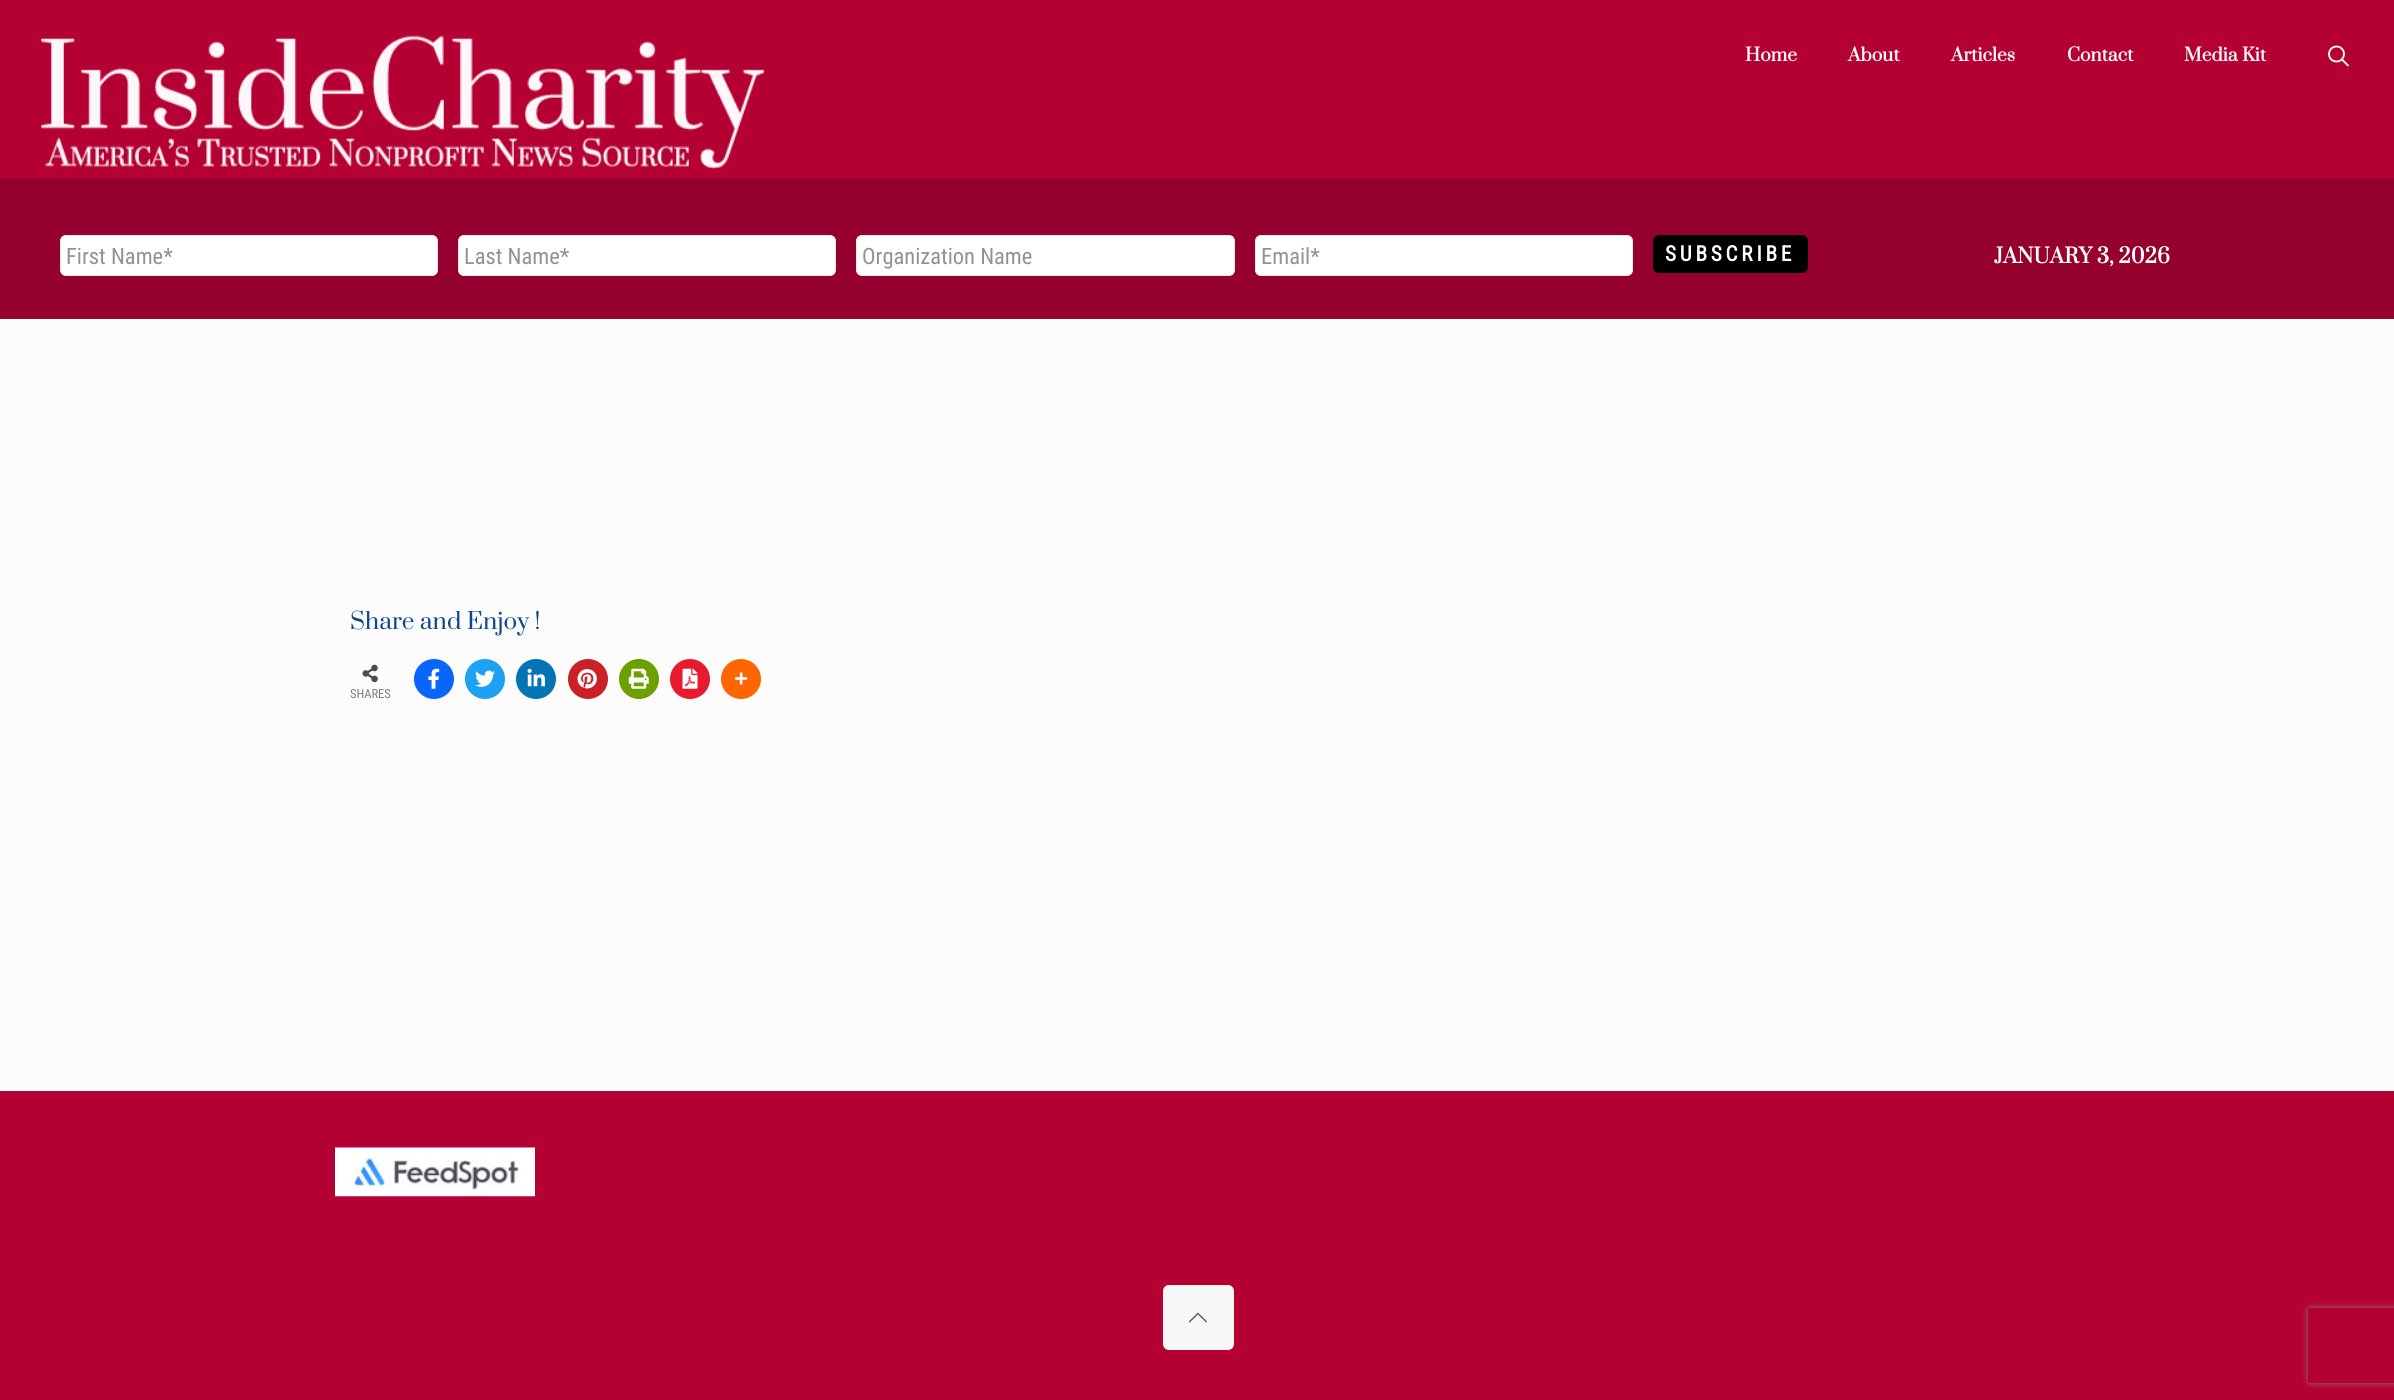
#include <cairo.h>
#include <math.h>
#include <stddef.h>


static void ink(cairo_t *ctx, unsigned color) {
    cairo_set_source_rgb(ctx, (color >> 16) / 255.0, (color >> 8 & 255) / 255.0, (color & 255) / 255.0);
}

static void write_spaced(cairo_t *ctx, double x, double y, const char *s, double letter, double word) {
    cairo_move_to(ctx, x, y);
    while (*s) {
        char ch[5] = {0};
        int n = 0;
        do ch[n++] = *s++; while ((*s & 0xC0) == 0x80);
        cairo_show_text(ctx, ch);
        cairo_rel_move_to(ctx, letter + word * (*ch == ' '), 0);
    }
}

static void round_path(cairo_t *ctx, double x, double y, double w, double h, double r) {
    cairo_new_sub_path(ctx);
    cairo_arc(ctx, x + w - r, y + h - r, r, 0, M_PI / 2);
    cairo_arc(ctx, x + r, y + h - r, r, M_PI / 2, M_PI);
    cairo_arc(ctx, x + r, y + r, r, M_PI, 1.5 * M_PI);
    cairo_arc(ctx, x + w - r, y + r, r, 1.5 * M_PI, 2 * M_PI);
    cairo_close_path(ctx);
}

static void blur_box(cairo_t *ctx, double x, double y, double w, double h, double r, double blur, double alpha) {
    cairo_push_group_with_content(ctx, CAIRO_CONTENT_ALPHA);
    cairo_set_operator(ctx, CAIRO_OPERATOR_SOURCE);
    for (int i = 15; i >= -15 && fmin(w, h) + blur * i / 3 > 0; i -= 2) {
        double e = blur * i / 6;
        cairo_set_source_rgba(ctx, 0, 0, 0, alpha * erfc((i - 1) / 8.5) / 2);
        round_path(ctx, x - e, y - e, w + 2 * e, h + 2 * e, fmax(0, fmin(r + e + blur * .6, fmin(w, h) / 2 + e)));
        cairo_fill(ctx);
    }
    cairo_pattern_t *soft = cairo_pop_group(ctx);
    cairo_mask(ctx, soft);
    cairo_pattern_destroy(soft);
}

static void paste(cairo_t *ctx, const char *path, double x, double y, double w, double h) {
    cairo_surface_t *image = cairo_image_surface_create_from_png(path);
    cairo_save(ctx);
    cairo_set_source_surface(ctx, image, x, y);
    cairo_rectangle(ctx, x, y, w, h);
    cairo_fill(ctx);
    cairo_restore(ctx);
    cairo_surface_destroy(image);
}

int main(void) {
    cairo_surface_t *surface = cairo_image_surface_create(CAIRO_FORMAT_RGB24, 2394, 1400);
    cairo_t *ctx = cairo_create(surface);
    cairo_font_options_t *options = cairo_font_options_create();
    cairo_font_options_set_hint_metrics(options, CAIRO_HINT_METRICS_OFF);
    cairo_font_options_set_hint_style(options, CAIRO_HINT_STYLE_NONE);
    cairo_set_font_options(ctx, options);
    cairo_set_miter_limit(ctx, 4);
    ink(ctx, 0xFCFCFC);
    cairo_paint(ctx);
    ink(ctx, 0xB40032);
    cairo_rectangle(ctx, 0, 0, 2394, 178);
    cairo_fill(ctx);
    ink(ctx, 0x96002E);
    cairo_rectangle(ctx, 0, 178, 2394, 141);
    cairo_fill(ctx);
    cairo_save(ctx);
    cairo_set_fill_rule(ctx, CAIRO_FILL_RULE_EVEN_ODD);
    cairo_new_path(ctx);
    cairo_move_to(ctx, 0, 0);
    cairo_line_to(ctx, 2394, 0);
    cairo_line_to(ctx, 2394, 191);
    cairo_line_to(ctx, 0, 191);
    cairo_close_path(ctx);
    cairo_move_to(ctx, 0, 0);
    cairo_line_to(ctx, 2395, 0);
    cairo_line_to(ctx, 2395, 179);
    cairo_line_to(ctx, 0, 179);
    cairo_close_path(ctx);
    cairo_clip(ctx);
    ink(ctx, 0x050001);
    blur_box(ctx, 0, 3, 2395, 178, 0, 3, 0.1);
    cairo_restore(ctx);
    cairo_set_source_rgba(ctx, 0.706, 0, 0.196, 0.97);
    cairo_rectangle(ctx, 0, 178, 2394, 1);
    cairo_fill(ctx);
    paste(ctx, "media/1.png", 41, 35, 723, 134);
    ink(ctx, 0xAB0030);
    cairo_rectangle(ctx, 1823, 38, 1, 37);
    cairo_fill(ctx);
    cairo_select_font_face(ctx, "Prata", CAIRO_FONT_SLANT_NORMAL, CAIRO_FONT_WEIGHT_BOLD);
    cairo_set_font_size(ctx, 17.5);
    ink(ctx, 0xFDF7F9);
    cairo_move_to(ctx, 1745, 61);
    cairo_show_text(ctx, "Home");
    ink(ctx, 0xAB0030);
    cairo_rectangle(ctx, 1925, 38, 1, 37);
    cairo_fill(ctx);
    ink(ctx, 0xFDF7F9);
    cairo_move_to(ctx, 1848, 61);
    cairo_show_text(ctx, "About");
    ink(ctx, 0xAB0030);
    cairo_rectangle(ctx, 2040, 38, 1, 37);
    cairo_fill(ctx);
    ink(ctx, 0xFDF7F9);
    cairo_move_to(ctx, 1951, 61);
    cairo_show_text(ctx, "Articles");
    ink(ctx, 0xAB0030);
    cairo_rectangle(ctx, 2158, 38, 1, 37);
    cairo_fill(ctx);
    ink(ctx, 0xFDF7F9);
    cairo_move_to(ctx, 2067, 61);
    cairo_show_text(ctx, "Contact");
    cairo_move_to(ctx, 2184, 61);
    cairo_show_text(ctx, "Media Kit");
    cairo_new_path(ctx);
    cairo_arc(ctx, 2336.5, 54, 7.5, 0, 2 * M_PI);
    cairo_set_line_width(ctx, 1.9);
    cairo_stroke(ctx);
    cairo_new_path(ctx);
    cairo_move_to(ctx, 2342, 59.5);
    cairo_line_to(ctx, 2348.5, 66);
    cairo_stroke(ctx);
    ink(ctx, 0xFFFFFF);
    round_path(ctx, 60.5, 235.5, 377, 40, 5.5);
    cairo_fill_preserve(ctx);
    ink(ctx, 0xEBEBEB);
    cairo_set_line_width(ctx, 1);
    cairo_stroke(ctx);
    cairo_select_font_face(ctx, "Roboto Condensed", CAIRO_FONT_SLANT_NORMAL, CAIRO_FONT_WEIGHT_NORMAL);
    cairo_set_font_size(ctx, 22.5);
    ink(ctx, 0x929292);
    cairo_move_to(ctx, 66, 264);
    cairo_show_text(ctx, "First Name*");
    ink(ctx, 0xFFFFFF);
    round_path(ctx, 458.5, 235.5, 377, 40, 5.5);
    cairo_fill_preserve(ctx);
    ink(ctx, 0xEBEBEB);
    cairo_stroke(ctx);
    ink(ctx, 0x929292);
    cairo_move_to(ctx, 464, 264);
    cairo_show_text(ctx, "Last Name*");
    ink(ctx, 0xFFFFFF);
    round_path(ctx, 856.5, 235.5, 378, 40, 5.5);
    cairo_fill_preserve(ctx);
    ink(ctx, 0xEBEBEB);
    cairo_stroke(ctx);
    ink(ctx, 0x929292);
    cairo_move_to(ctx, 862, 264);
    cairo_show_text(ctx, "Organization Name");
    ink(ctx, 0xFFFFFF);
    round_path(ctx, 1255.5, 235.5, 377, 40, 5.5);
    cairo_fill_preserve(ctx);
    ink(ctx, 0xEBEBEB);
    cairo_stroke(ctx);
    ink(ctx, 0x929292);
    cairo_move_to(ctx, 1261, 264);
    cairo_show_text(ctx, "Email*");
    ink(ctx, 0xB40032);
    cairo_rectangle(ctx, 0, 1091, 2394, 309);
    cairo_fill(ctx);
    cairo_save(ctx);
    cairo_set_fill_rule(ctx, CAIRO_FILL_RULE_EVEN_ODD);
    cairo_new_path(ctx);
    cairo_move_to(ctx, 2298, 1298);
    cairo_line_to(ctx, 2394, 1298);
    cairo_line_to(ctx, 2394, 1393);
    cairo_line_to(ctx, 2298, 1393);
    cairo_close_path(ctx);
    cairo_move_to(ctx, 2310.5, 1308);
    cairo_line_to(ctx, 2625.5, 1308);
    cairo_curve_to(ctx, 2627, 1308, 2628, 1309, 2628, 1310.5);
    cairo_line_to(ctx, 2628, 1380.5);
    cairo_curve_to(ctx, 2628, 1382, 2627, 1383, 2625.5, 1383);
    cairo_line_to(ctx, 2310.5, 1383);
    cairo_curve_to(ctx, 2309, 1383, 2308, 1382, 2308, 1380.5);
    cairo_line_to(ctx, 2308, 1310.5);
    cairo_curve_to(ctx, 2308, 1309, 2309, 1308, 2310.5, 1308);
    cairo_close_path(ctx);
    cairo_clip(ctx);
    ink(ctx, 0x808080);
    blur_box(ctx, 2308, 1308, 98, 75, 2.5, 3, 1);
    cairo_restore(ctx);
    ink(ctx, 0x000000);
    round_path(ctx, 1653, 235, 155, 38, 6);
    cairo_fill(ctx);
    cairo_select_font_face(ctx, "Roboto Condensed", CAIRO_FONT_SLANT_NORMAL, CAIRO_FONT_WEIGHT_BOLD);
    cairo_set_font_size(ctx, 21.25);
    ink(ctx, 0xFFFFFF);
    write_spaced(ctx, 1665, 261, "SUBSCRIBE", 3.75, 0);
    cairo_select_font_face(ctx, "Prata", CAIRO_FONT_SLANT_NORMAL, CAIRO_FONT_WEIGHT_BOLD);
    cairo_set_font_size(ctx, 20);
    cairo_move_to(ctx, 1994, 263);
    cairo_show_text(ctx, "JANUARY 3, 2026");
    cairo_select_font_face(ctx, "Prata", CAIRO_FONT_SLANT_NORMAL, CAIRO_FONT_WEIGHT_NORMAL);
    cairo_set_font_size(ctx, 22.5);
    ink(ctx, 0x0D478C);
    cairo_move_to(ctx, 350, 629);
    cairo_show_text(ctx, "Share and Enjoy !");
    paste(ctx, "media/2.png", 362, 664, 16, 19);
    cairo_select_font_face(ctx, "Roboto Condensed", CAIRO_FONT_SLANT_NORMAL, CAIRO_FONT_WEIGHT_NORMAL);
    cairo_set_font_size(ctx, 12.5);
    ink(ctx, 0x7E7E7E);
    cairo_move_to(ctx, 350, 698);
    cairo_show_text(ctx, "SHARES");
    ink(ctx, 0x0866FF);
    cairo_new_path(ctx);
    cairo_arc(ctx, 434, 679, 20, 0, 2 * M_PI);
    cairo_fill(ctx);
    paste(ctx, "media/3.png", 428, 668, 12, 21);
    ink(ctx, 0x1DA1F2);
    cairo_arc(ctx, 485, 679, 20, 0, 2 * M_PI);
    cairo_fill(ctx);
    paste(ctx, "media/4.png", 475, 670, 20, 17);
    ink(ctx, 0x0274B3);
    cairo_arc(ctx, 536, 679, 20, 0, 2 * M_PI);
    cairo_fill(ctx);
    paste(ctx, "media/5.png", 527, 668, 18, 19);
    ink(ctx, 0xCB2027);
    cairo_arc(ctx, 588, 679, 20, 0, 2 * M_PI);
    cairo_fill(ctx);
    paste(ctx, "media/6.png", 577, 669, 20, 20);
    ink(ctx, 0x6D9F00);
    cairo_arc(ctx, 639, 679, 20, 0, 2 * M_PI);
    cairo_fill(ctx);
    paste(ctx, "media/7.png", 628, 668, 21, 21);
    ink(ctx, 0xE61B2E);
    cairo_arc(ctx, 690, 679, 20, 0, 2 * M_PI);
    cairo_fill(ctx);
    paste(ctx, "media/8.png", 682, 668, 16, 21);
    ink(ctx, 0xFF6500);
    cairo_arc(ctx, 741, 679, 20, 0, 2 * M_PI);
    cairo_fill(ctx);
    paste(ctx, "media/9.png", 735, 672, 13, 13);
    paste(ctx, "media/10.png", 335, 1147, 200, 50);
    ink(ctx, 0xF7F7F7);
    round_path(ctx, 1163, 1285, 71, 65, 6);
    cairo_fill(ctx);
    paste(ctx, "media/11.png", 1188, 1312, 19, 11);
    cairo_surface_write_to_png(surface, "image.png");
    cairo_font_options_destroy(options);
    cairo_destroy(ctx);
    cairo_surface_destroy(surface);
    return 0;
}
